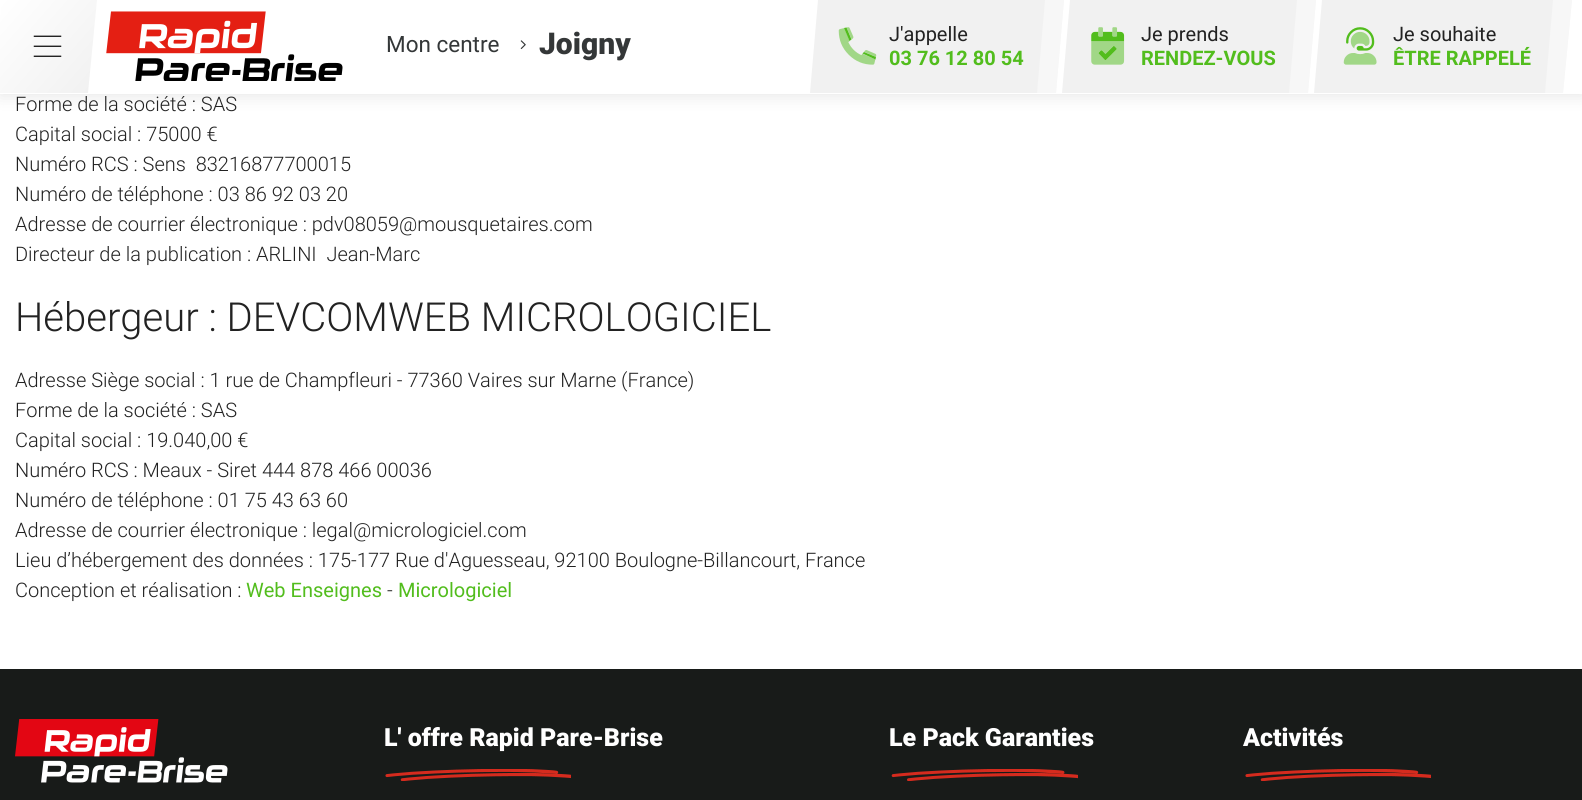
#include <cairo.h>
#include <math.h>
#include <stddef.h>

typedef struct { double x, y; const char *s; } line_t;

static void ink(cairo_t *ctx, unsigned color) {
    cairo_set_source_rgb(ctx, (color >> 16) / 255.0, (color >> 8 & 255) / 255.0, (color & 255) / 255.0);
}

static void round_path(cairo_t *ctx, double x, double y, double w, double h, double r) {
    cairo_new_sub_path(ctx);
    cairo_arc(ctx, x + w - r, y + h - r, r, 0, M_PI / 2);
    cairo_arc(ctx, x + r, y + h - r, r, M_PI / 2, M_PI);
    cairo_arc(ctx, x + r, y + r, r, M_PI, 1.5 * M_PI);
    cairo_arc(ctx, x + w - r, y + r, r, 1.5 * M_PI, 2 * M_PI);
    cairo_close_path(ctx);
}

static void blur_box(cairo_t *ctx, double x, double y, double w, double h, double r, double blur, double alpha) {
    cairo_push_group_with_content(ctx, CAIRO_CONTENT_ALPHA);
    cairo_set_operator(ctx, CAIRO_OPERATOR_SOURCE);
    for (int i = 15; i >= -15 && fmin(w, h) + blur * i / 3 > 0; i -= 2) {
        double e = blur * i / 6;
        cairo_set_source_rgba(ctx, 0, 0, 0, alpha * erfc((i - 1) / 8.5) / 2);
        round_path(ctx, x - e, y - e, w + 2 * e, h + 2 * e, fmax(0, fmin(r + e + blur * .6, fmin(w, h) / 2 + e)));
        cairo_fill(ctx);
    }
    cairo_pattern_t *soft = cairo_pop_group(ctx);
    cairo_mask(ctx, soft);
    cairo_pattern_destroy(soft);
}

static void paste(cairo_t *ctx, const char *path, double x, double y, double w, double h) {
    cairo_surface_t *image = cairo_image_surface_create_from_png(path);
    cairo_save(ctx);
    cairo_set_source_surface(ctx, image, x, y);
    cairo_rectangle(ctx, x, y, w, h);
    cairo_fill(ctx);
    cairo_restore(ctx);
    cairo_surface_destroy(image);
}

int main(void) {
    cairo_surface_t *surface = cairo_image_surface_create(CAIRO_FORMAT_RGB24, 1582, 800);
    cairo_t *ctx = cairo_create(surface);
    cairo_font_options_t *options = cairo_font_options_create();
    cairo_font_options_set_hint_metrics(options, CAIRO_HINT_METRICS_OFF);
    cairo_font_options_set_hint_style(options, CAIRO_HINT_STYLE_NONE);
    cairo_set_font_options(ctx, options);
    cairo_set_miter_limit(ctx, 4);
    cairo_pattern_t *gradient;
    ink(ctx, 0xFFFFFF);
    cairo_paint(ctx);
    ink(ctx, 0x000000);
    blur_box(ctx, 0, 3, 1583, 93, 0, 8, 0.1);
    ink(ctx, 0xFFFFFF);
    cairo_rectangle(ctx, 0, 0, 1582, 94);
    cairo_fill(ctx);
    gradient = cairo_pattern_create_linear(-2.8, 4.8, 93, 88);
    cairo_pattern_add_color_stop_rgba(gradient, 0, 1, 1, 1, 1);
    cairo_pattern_add_color_stop_rgba(gradient, 1, 0.945, 0.945, 0.945, 1);
    cairo_set_source(ctx, gradient);
    cairo_pattern_destroy(gradient);
    cairo_new_path(ctx);
    cairo_move_to(ctx, 2, 0);
    cairo_line_to(ctx, 97, 0);
    cairo_line_to(ctx, 88, 93);
    cairo_line_to(ctx, -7, 93);
    cairo_close_path(ctx);
    cairo_fill(ctx);
    paste(ctx, "media/1.png", 33, 35, 29, 22);
    paste(ctx, "media/2.png", 106, 11, 237, 70);
    cairo_select_font_face(ctx, "Roboto", CAIRO_FONT_SLANT_NORMAL, CAIRO_FONT_WEIGHT_NORMAL);
    cairo_set_font_size(ctx, 22.5);
    ink(ctx, 0x343738);
    cairo_move_to(ctx, 386, 52);
    cairo_show_text(ctx, "Mon centre");
    paste(ctx, "media/3.png", 520, 40, 6, 9);
    cairo_select_font_face(ctx, "Roboto Black", CAIRO_FONT_SLANT_NORMAL, CAIRO_FONT_WEIGHT_NORMAL);
    cairo_set_font_size(ctx, 30);
    cairo_move_to(ctx, 539, 54);
    cairo_show_text(ctx, "Joigny");
    ink(ctx, 0xF1F1F1);
    cairo_new_path(ctx);
    cairo_move_to(ctx, 818, 0);
    cairo_line_to(ctx, 1064, 0);
    cairo_line_to(ctx, 1056, 93);
    cairo_line_to(ctx, 810, 93);
    cairo_close_path(ctx);
    cairo_fill(ctx);
    ink(ctx, 0x52BD1D);
    cairo_new_path(ctx);
    cairo_move_to(ctx, 844, 28);
    cairo_line_to(ctx, 846.5, 27.5);
    cairo_line_to(ctx, 851.5, 39.5);
    cairo_line_to(ctx, 849.5, 41);
    cairo_close_path(ctx);
    cairo_move_to(ctx, 864, 52);
    cairo_line_to(ctx, 876, 57);
    cairo_line_to(ctx, 875.5, 59.5);
    cairo_line_to(ctx, 862.5, 53.5);
    cairo_close_path(ctx);
    cairo_fill(ctx);
    paste(ctx, "media/4.png", 838, 27, 39, 38);
    cairo_select_font_face(ctx, "Roboto", CAIRO_FONT_SLANT_NORMAL, CAIRO_FONT_WEIGHT_NORMAL);
    cairo_set_font_size(ctx, 20);
    ink(ctx, 0x222222);
    cairo_move_to(ctx, 889, 41);
    cairo_show_text(ctx, "J'appelle");
    cairo_set_source_rgba(ctx, 1, 1, 1, 0.4);
    cairo_new_path(ctx);
    cairo_move_to(ctx, 1045, 0);
    cairo_line_to(ctx, 1064, 0);
    cairo_line_to(ctx, 1056, 93);
    cairo_line_to(ctx, 1037, 93);
    cairo_close_path(ctx);
    cairo_fill(ctx);
    cairo_select_font_face(ctx, "Roboto", CAIRO_FONT_SLANT_NORMAL, CAIRO_FONT_WEIGHT_BOLD);
    ink(ctx, 0x52BD1D);
    cairo_move_to(ctx, 889, 65);
    cairo_show_text(ctx, "03 76 12 80 54");
    ink(ctx, 0xF1F1F1);
    cairo_new_path(ctx);
    cairo_move_to(ctx, 1070, 0);
    cairo_line_to(ctx, 1316, 0);
    cairo_line_to(ctx, 1308, 93);
    cairo_line_to(ctx, 1062, 93);
    cairo_close_path(ctx);
    cairo_fill(ctx);
    paste(ctx, "media/6.png", 1091, 31, 34, 30);
    paste(ctx, "media/5.png", 1091, 27, 34, 38);
    cairo_select_font_face(ctx, "Roboto", CAIRO_FONT_SLANT_NORMAL, CAIRO_FONT_WEIGHT_NORMAL);
    ink(ctx, 0x222222);
    cairo_move_to(ctx, 1141, 41);
    cairo_show_text(ctx, "Je prends");
    cairo_set_source_rgba(ctx, 1, 1, 1, 0.4);
    cairo_new_path(ctx);
    cairo_move_to(ctx, 1297, 0);
    cairo_line_to(ctx, 1316, 0);
    cairo_line_to(ctx, 1308, 93);
    cairo_line_to(ctx, 1289, 93);
    cairo_close_path(ctx);
    cairo_fill(ctx);
    cairo_select_font_face(ctx, "Roboto", CAIRO_FONT_SLANT_NORMAL, CAIRO_FONT_WEIGHT_BOLD);
    ink(ctx, 0x52BD1D);
    cairo_move_to(ctx, 1141, 65);
    cairo_show_text(ctx, "RENDEZ-VOUS");
    ink(ctx, 0xF1F1F1);
    cairo_new_path(ctx);
    cairo_move_to(ctx, 1322, 0);
    cairo_line_to(ctx, 1572, 0);
    cairo_line_to(ctx, 1563, 93);
    cairo_line_to(ctx, 1314, 93);
    cairo_close_path(ctx);
    cairo_fill(ctx);
    paste(ctx, "media/7.png", 1346, 27, 29, 24);
    paste(ctx, "media/8.png", 1343, 31, 34, 34);
    cairo_select_font_face(ctx, "Roboto", CAIRO_FONT_SLANT_NORMAL, CAIRO_FONT_WEIGHT_NORMAL);
    ink(ctx, 0x222222);
    cairo_move_to(ctx, 1393, 41);
    cairo_show_text(ctx, "Je souhaite");
    cairo_set_source_rgba(ctx, 1, 1, 1, 0.4);
    cairo_new_path(ctx);
    cairo_move_to(ctx, 1553, 0);
    cairo_line_to(ctx, 1572, 0);
    cairo_line_to(ctx, 1563, 93);
    cairo_line_to(ctx, 1545, 93);
    cairo_close_path(ctx);
    cairo_fill(ctx);
    cairo_select_font_face(ctx, "Roboto", CAIRO_FONT_SLANT_NORMAL, CAIRO_FONT_WEIGHT_BOLD);
    ink(ctx, 0x52BD1D);
    cairo_move_to(ctx, 1393, 65);
    cairo_show_text(ctx, "ÊTRE RAPPELÉ");
    cairo_select_font_face(ctx, "Roboto Light", CAIRO_FONT_SLANT_NORMAL, CAIRO_FONT_WEIGHT_NORMAL);
    ink(ctx, 0x222222);
    {
        static const line_t items[] = {
            {15, 111, "Forme de la société : SAS"},
            {15, 141, "Capital social : 75000 €"},
            {15, 171, "Numéro RCS : Sens  83216877700015"},
            {15, 201, "Numéro de téléphone : 03 86 92 03 20"},
            {15, 231, "Adresse de courrier électronique : pdv08059@mousquetaires.com"},
            {15, 261, "Directeur de la publication : ARLINI  Jean-Marc"},
        };
        for (size_t i = 0; i < sizeof items / sizeof *items; i++) {
            cairo_move_to(ctx, items[i].x, items[i].y);
            cairo_show_text(ctx, items[i].s);
        }
    }
    cairo_set_font_size(ctx, 40);
    cairo_move_to(ctx, 15, 331);
    cairo_show_text(ctx, "Hébergeur : DEVCOMWEB MICROLOGICIEL");
    cairo_set_font_size(ctx, 20);
    {
        static const line_t items[] = {
            {15, 387, "Adresse Siège social : 1 rue de Champfleuri - 77360 Vaires sur Marne (France)"},
            {15, 417, "Forme de la société : SAS"},
            {15, 447, "Capital social : 19.040,00 €"},
            {15, 477, "Numéro RCS : Meaux - Siret 444 878 466 00036"},
            {15, 507, "Numéro de téléphone : 01 75 43 63 60"},
            {15, 537, "Adresse de courrier électronique : legal@micrologiciel.com"},
            {15, 567, "Lieu d’hébergement des données : 175-177 Rue d'Aguesseau, 92100 Boulogne-Billancourt, France"},
            {15, 597, "Conception et réalisation :"},
        };
        for (size_t i = 0; i < sizeof items / sizeof *items; i++) {
            cairo_move_to(ctx, items[i].x, items[i].y);
            cairo_show_text(ctx, items[i].s);
        }
    }
    cairo_select_font_face(ctx, "Roboto", CAIRO_FONT_SLANT_NORMAL, CAIRO_FONT_WEIGHT_NORMAL);
    ink(ctx, 0x52BD1D);
    cairo_move_to(ctx, 246, 597);
    cairo_show_text(ctx, "Web Enseignes");
    cairo_select_font_face(ctx, "Roboto Light", CAIRO_FONT_SLANT_NORMAL, CAIRO_FONT_WEIGHT_NORMAL);
    ink(ctx, 0x222222);
    cairo_move_to(ctx, 387, 597);
    cairo_show_text(ctx, "-");
    cairo_select_font_face(ctx, "Roboto", CAIRO_FONT_SLANT_NORMAL, CAIRO_FONT_WEIGHT_NORMAL);
    ink(ctx, 0x52BD1D);
    cairo_move_to(ctx, 398, 597);
    cairo_show_text(ctx, "Micrologiciel");
    ink(ctx, 0x181B19);
    cairo_rectangle(ctx, 0, 669, 1582, 131);
    cairo_fill(ctx);
    paste(ctx, "media/9.png", 15, 719, 213, 64);
    cairo_select_font_face(ctx, "Roboto Black", CAIRO_FONT_SLANT_NORMAL, CAIRO_FONT_WEIGHT_NORMAL);
    cairo_set_font_size(ctx, 25);
    ink(ctx, 0xFFFFFF);
    cairo_move_to(ctx, 384, 746);
    cairo_show_text(ctx, "L' offre Rapid Pare-Brise");
    paste(ctx, "media/10.png", 385, 769, 186, 12);
    cairo_move_to(ctx, 889, 746);
    cairo_show_text(ctx, "Le Pack Garanties");
    paste(ctx, "media/11.png", 891, 769, 187, 12);
    cairo_move_to(ctx, 1243, 746);
    cairo_show_text(ctx, "Activités");
    paste(ctx, "media/10.png", 1245, 769, 186, 12);
    cairo_surface_write_to_png(surface, "image.png");
    cairo_font_options_destroy(options);
    cairo_destroy(ctx);
    cairo_surface_destroy(surface);
    return 0;
}
